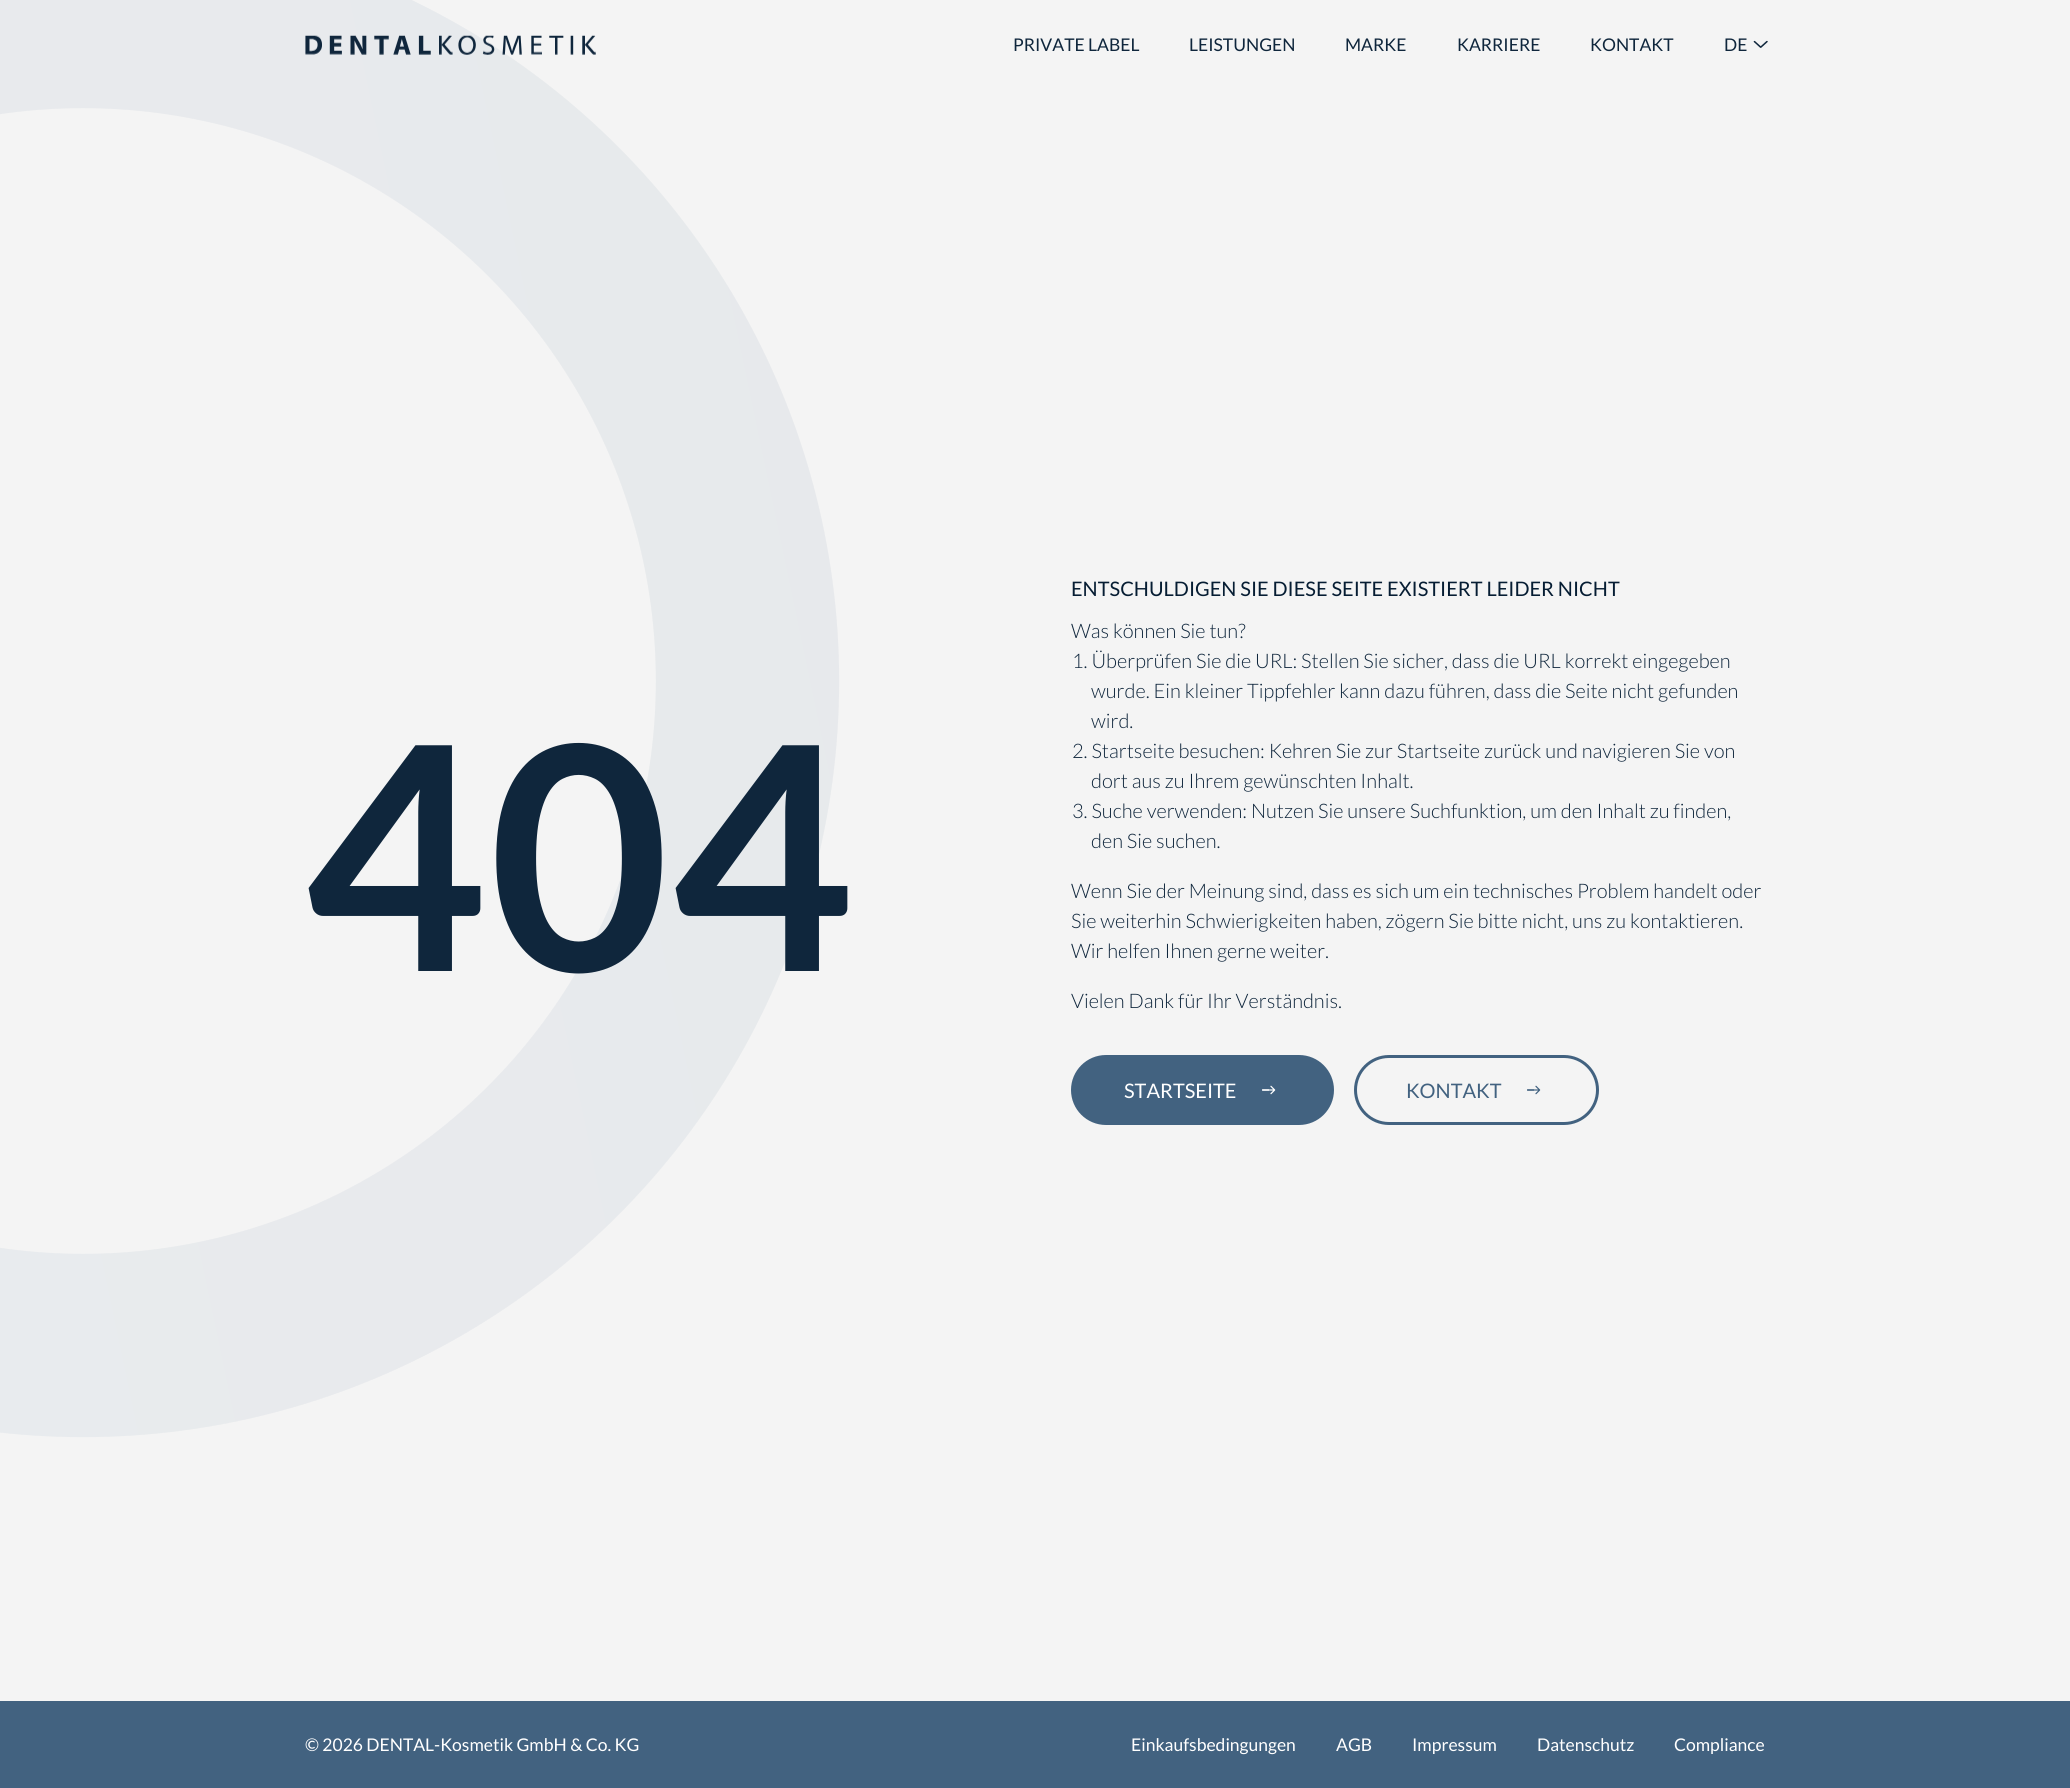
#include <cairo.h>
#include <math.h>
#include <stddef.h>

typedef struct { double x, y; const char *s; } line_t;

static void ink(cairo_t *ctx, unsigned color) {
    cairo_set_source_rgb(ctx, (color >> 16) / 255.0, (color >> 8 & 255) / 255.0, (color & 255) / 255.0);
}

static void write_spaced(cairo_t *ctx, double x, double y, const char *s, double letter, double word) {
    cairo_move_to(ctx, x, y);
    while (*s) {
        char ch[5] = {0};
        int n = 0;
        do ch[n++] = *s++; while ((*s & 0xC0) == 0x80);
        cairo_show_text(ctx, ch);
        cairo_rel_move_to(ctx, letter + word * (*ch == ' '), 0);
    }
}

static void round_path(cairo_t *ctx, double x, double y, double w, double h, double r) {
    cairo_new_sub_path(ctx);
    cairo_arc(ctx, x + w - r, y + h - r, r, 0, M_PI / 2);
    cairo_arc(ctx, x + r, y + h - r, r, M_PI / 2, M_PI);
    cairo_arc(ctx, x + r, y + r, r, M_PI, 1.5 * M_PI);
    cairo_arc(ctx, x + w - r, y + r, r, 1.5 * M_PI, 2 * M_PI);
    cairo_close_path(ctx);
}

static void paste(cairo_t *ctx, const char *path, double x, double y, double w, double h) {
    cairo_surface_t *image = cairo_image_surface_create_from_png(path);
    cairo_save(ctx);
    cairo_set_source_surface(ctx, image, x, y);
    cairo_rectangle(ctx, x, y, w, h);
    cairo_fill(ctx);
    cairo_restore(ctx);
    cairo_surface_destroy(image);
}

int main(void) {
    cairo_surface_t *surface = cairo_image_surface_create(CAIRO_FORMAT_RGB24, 2070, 1788);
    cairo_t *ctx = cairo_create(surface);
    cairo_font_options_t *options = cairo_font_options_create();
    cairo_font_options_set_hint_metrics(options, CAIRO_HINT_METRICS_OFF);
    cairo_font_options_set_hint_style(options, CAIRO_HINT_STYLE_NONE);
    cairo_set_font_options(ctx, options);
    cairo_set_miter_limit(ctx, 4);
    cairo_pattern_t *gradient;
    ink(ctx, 0x426280);
    cairo_paint(ctx);
    ink(ctx, 0xF4F4F4);
    cairo_rectangle(ctx, 0, 0, 2070, 1701);
    cairo_fill(ctx);
    cairo_arc(ctx, 83, 681, 664.5, 0, 2 * M_PI);
    gradient = cairo_pattern_create_linear(959, 498, -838, 874);
    cairo_pattern_add_color_stop_rgba(gradient, 0, 0.059, 0.212, 0.384, 0.06);
    cairo_pattern_add_color_stop_rgba(gradient, 1, 0.204, 0.38, 0.58, 0.06);
    cairo_set_source(ctx, gradient);
    cairo_pattern_destroy(gradient);
    cairo_set_line_width(ctx, 183.3);
    cairo_stroke(ctx);
    paste(ctx, "media/1.png", 305, 35, 291, 20);
    cairo_select_font_face(ctx, "Lato", CAIRO_FONT_SLANT_NORMAL, CAIRO_FONT_WEIGHT_NORMAL);
    cairo_set_font_size(ctx, 17.5);
    ink(ctx, 0x0F263C);
    {
        static const line_t items[] = {
            {1013, 51, "PRIVATE LABEL"},
            {1189, 51, "LEISTUNGEN"},
            {1345, 51, "MARKE"},
            {1457, 51, "KARRIERE"},
            {1590, 51, "KONTAKT"},
            {1724, 51, "DE"},
        };
        for (size_t i = 0; i < sizeof items / sizeof *items; i++) {
            cairo_move_to(ctx, items[i].x, items[i].y);
            cairo_show_text(ctx, items[i].s);
        }
    }
    paste(ctx, "media/2.png", 1753, 40, 15, 8);
    cairo_select_font_face(ctx, "Lato", CAIRO_FONT_SLANT_NORMAL, CAIRO_FONT_WEIGHT_BOLD);
    cairo_set_font_size(ctx, 312);
    write_spaced(ctx, 305, 971, "404", 2.5, 0);
    cairo_select_font_face(ctx, "Lato", CAIRO_FONT_SLANT_NORMAL, CAIRO_FONT_WEIGHT_NORMAL);
    cairo_set_font_size(ctx, 20);
    ink(ctx, 0x061D33);
    cairo_move_to(ctx, 1071, 596);
    cairo_show_text(ctx, "ENTSCHULDIGEN SIE DIESE SEITE EXISTIERT LEIDER NICHT");
    cairo_select_font_face(ctx, "Lato Light", CAIRO_FONT_SLANT_NORMAL, CAIRO_FONT_WEIGHT_NORMAL);
    ink(ctx, 0x0F263C);
    {
        static const line_t items[] = {
            {1071, 638, "Was können Sie tun?"},
            {1072, 668, "1. Überprüfen Sie die URL: Stellen Sie sicher, dass die URL korrekt eingegeben"},
            {1091, 698, "wurde. Ein kleiner Tippfehler kann dazu führen, dass die Seite nicht gefunden"},
            {1091, 728, "wird."},
            {1072, 758, "2. Startseite besuchen: Kehren Sie zur Startseite zurück und navigieren Sie von"},
            {1091, 788, "dort aus zu Ihrem gewünschten Inhalt."},
            {1072, 818, "3. Suche verwenden: Nutzen Sie unsere Suchfunktion, um den Inhalt zu finden,"},
            {1091, 848, "den Sie suchen."},
            {1071, 898, "Wenn Sie der Meinung sind, dass es sich um ein technisches Problem handelt oder"},
            {1071, 928, "Sie weiterhin Schwierigkeiten haben, zögern Sie bitte nicht, uns zu kontaktieren."},
            {1071, 958, "Wir helfen Ihnen gerne weiter."},
            {1071, 1008, "Vielen Dank für Ihr Verständnis."},
        };
        for (size_t i = 0; i < sizeof items / sizeof *items; i++) {
            cairo_move_to(ctx, items[i].x, items[i].y);
            cairo_show_text(ctx, items[i].s);
        }
    }
    ink(ctx, 0x426280);
    round_path(ctx, 1072.5, 1056.5, 260, 67, 33.5);
    cairo_fill_preserve(ctx);
    cairo_set_line_width(ctx, 3);
    cairo_stroke(ctx);
    cairo_select_font_face(ctx, "Lato", CAIRO_FONT_SLANT_NORMAL, CAIRO_FONT_WEIGHT_NORMAL);
    ink(ctx, 0xFFFFFF);
    cairo_move_to(ctx, 1124, 1098);
    cairo_show_text(ctx, "STARTSEITE");
    paste(ctx, "media/4.png", 1262, 1089, 7, 2);
    paste(ctx, "media/3.png", 1262, 1085, 14, 10);
    round_path(ctx, 1355.5, 1056.5, 242, 67, 33.5);
    ink(ctx, 0x426280);
    cairo_stroke(ctx);
    cairo_move_to(ctx, 1406, 1098);
    cairo_show_text(ctx, "KONTAKT");
    paste(ctx, "media/6.png", 1527, 1089, 7, 2);
    paste(ctx, "media/5.png", 1527, 1085, 14, 10);
    cairo_set_font_size(ctx, 17.5);
    ink(ctx, 0xFFFFFF);
    {
        static const line_t items[] = {
            {305, 1751, "© 2026 DENTAL-Kosmetik GmbH & Co. KG"},
            {1131, 1751, "Einkaufsbedingungen"},
            {1336, 1751, "AGB"},
            {1412, 1751, "Impressum"},
            {1537, 1751, "Datenschutz"},
            {1674, 1751, "Compliance"},
        };
        for (size_t i = 0; i < sizeof items / sizeof *items; i++) {
            cairo_move_to(ctx, items[i].x, items[i].y);
            cairo_show_text(ctx, items[i].s);
        }
    }
    cairo_surface_write_to_png(surface, "image.png");
    cairo_font_options_destroy(options);
    cairo_destroy(ctx);
    cairo_surface_destroy(surface);
    return 0;
}
